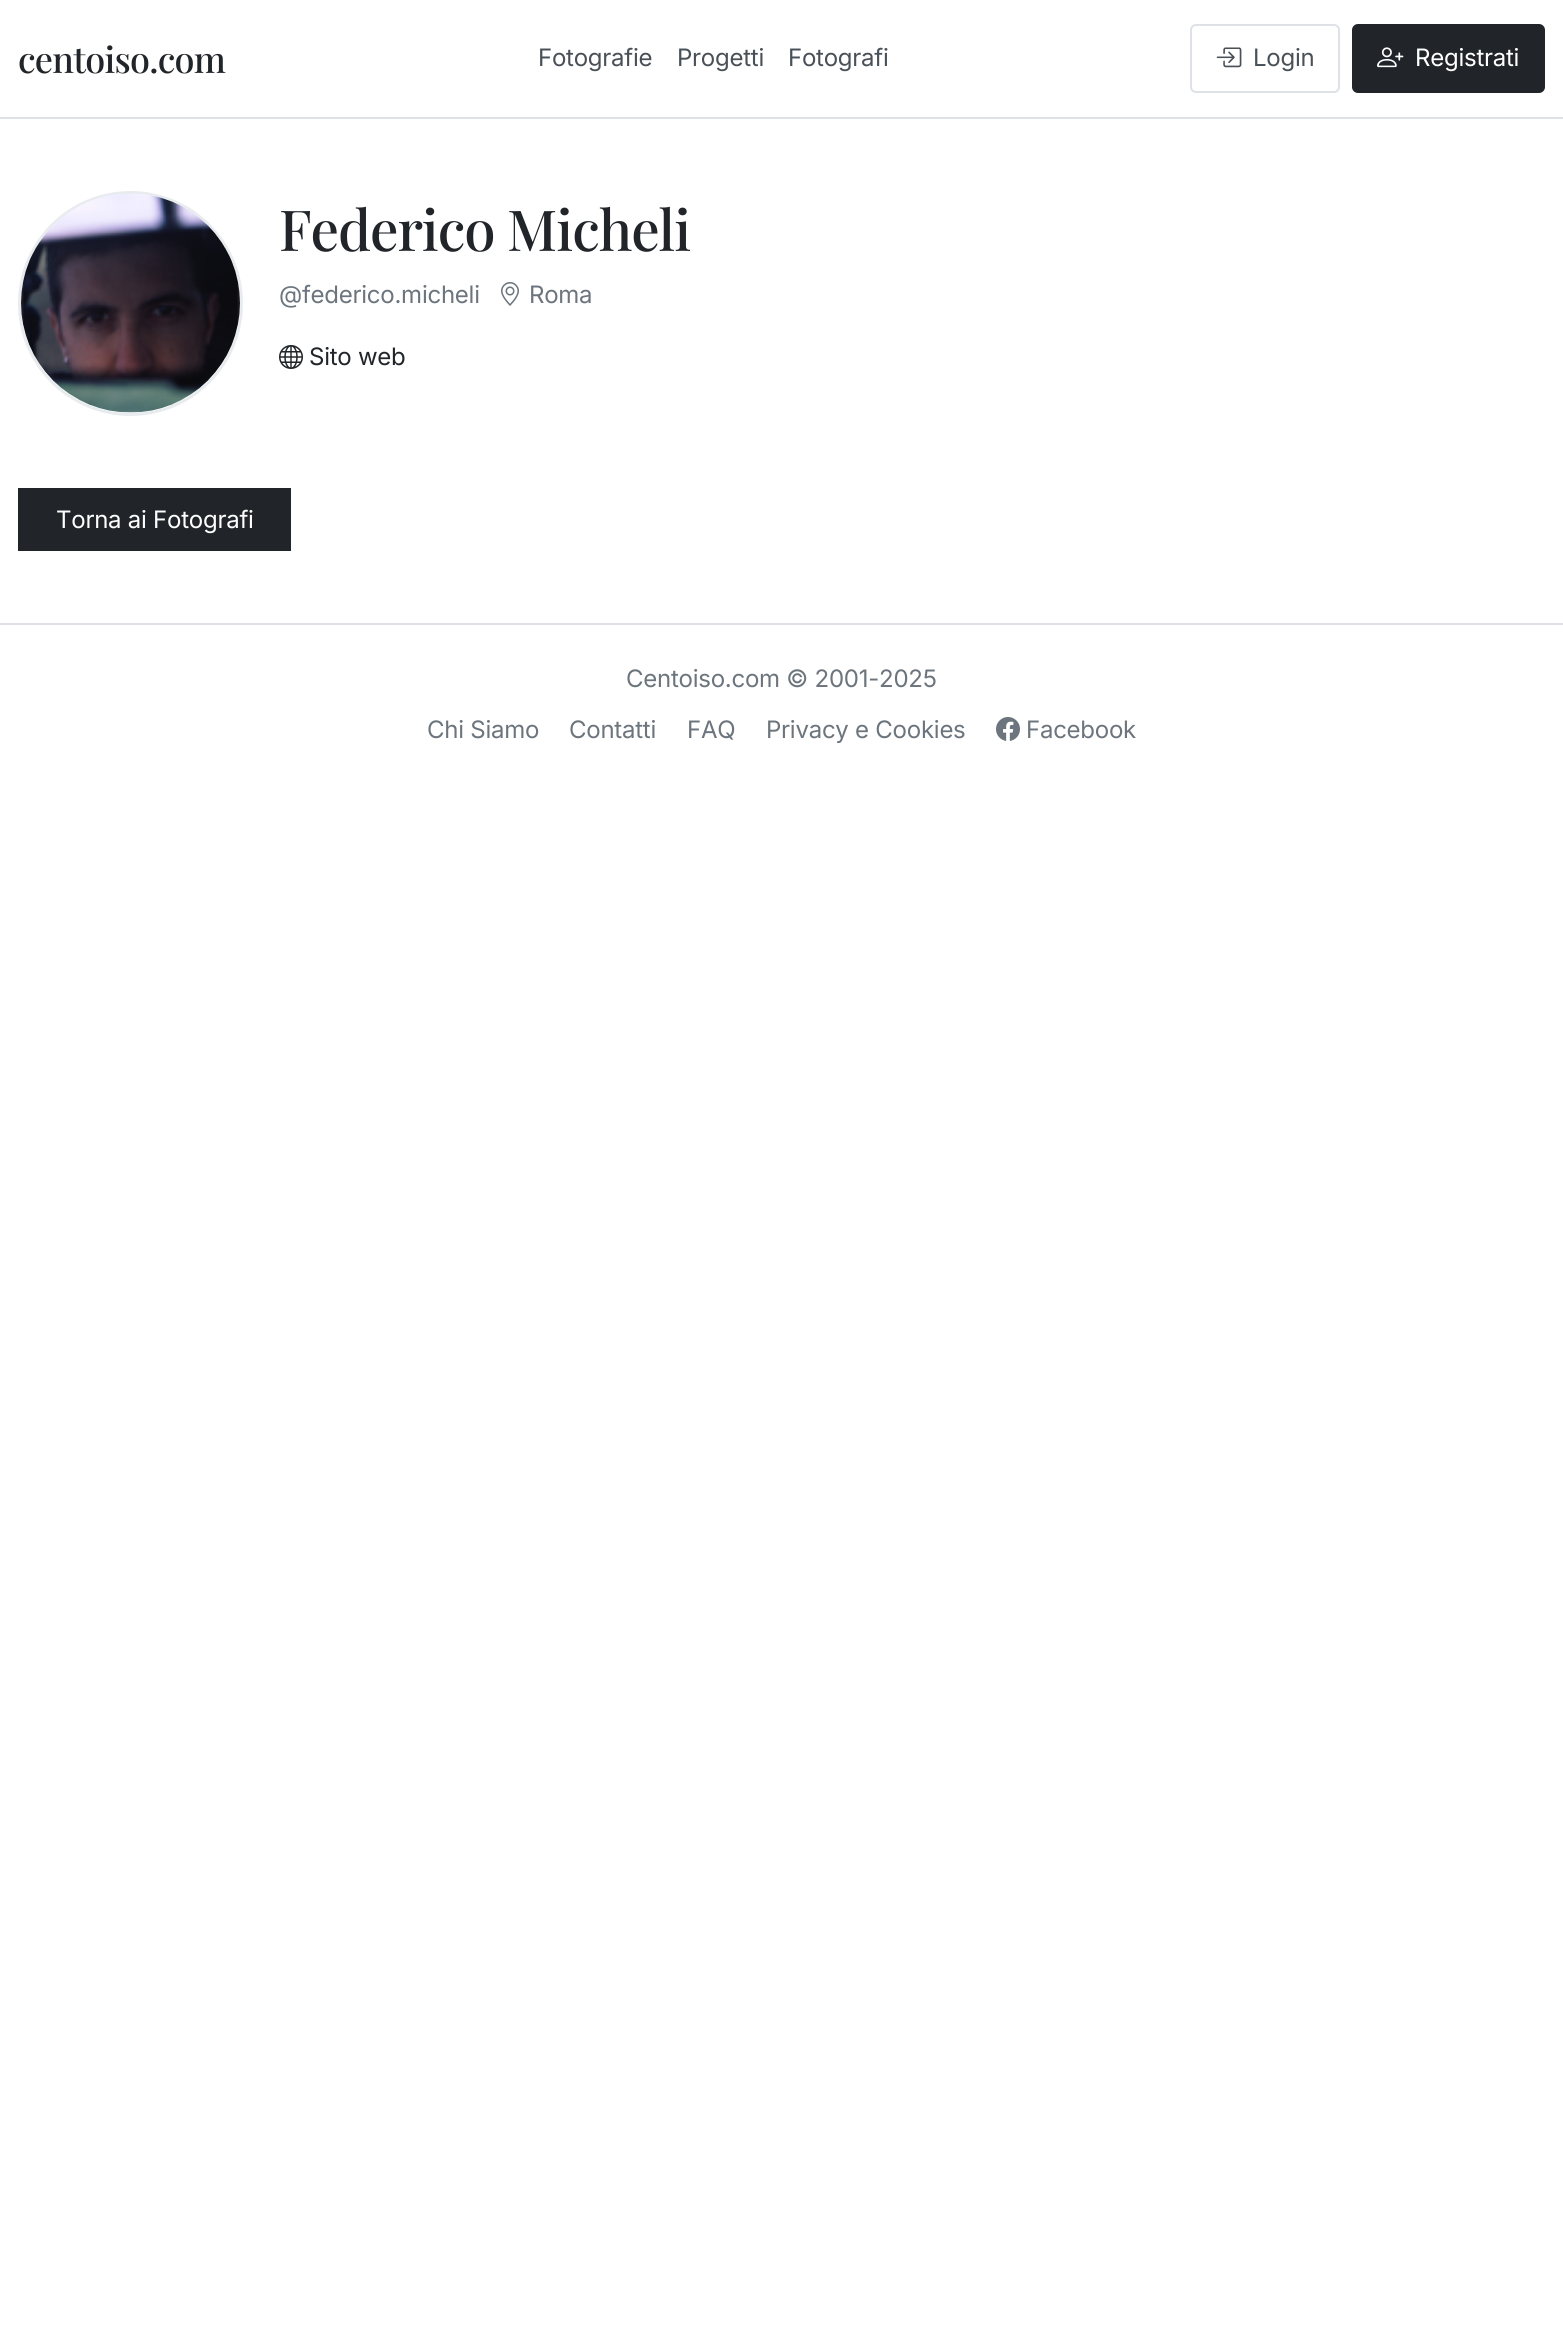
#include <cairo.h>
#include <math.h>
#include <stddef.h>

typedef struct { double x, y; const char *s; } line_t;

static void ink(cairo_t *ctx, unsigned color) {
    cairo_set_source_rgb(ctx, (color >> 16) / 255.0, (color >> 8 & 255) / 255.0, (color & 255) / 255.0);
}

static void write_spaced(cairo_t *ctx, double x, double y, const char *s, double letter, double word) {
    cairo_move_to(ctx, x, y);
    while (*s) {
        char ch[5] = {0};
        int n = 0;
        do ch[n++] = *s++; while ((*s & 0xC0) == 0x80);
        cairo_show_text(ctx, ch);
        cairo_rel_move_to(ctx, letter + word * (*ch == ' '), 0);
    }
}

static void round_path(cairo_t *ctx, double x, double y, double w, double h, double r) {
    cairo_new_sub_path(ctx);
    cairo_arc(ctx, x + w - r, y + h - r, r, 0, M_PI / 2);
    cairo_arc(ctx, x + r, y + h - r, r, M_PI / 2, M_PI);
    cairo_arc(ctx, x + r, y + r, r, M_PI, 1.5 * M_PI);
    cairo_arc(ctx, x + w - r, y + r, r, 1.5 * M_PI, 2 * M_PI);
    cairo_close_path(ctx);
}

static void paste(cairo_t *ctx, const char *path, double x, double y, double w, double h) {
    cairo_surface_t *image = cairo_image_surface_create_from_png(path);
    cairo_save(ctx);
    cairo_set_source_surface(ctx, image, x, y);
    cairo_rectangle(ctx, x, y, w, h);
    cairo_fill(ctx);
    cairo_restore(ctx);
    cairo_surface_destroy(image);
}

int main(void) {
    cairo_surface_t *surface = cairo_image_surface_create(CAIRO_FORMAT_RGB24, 1563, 2327);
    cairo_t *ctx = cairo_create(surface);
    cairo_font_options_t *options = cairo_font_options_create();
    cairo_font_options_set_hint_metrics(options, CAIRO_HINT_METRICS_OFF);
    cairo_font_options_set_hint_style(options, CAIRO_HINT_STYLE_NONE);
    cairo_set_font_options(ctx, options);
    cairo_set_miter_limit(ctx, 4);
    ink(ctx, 0xFFFFFF);
    cairo_paint(ctx);
    ink(ctx, 0xDEE2E6);
    cairo_rectangle(ctx, 0, 117, 1563, 2);
    cairo_fill(ctx);
    cairo_select_font_face(ctx, "Playfair Display Medium", CAIRO_FONT_SLANT_NORMAL, CAIRO_FONT_WEIGHT_NORMAL);
    cairo_set_font_size(ctx, 36);
    ink(ctx, 0x212529);
    write_spaced(ctx, 18, 73, "centoiso.com", -0.75, 0);
    cairo_select_font_face(ctx, "Inter", CAIRO_FONT_SLANT_NORMAL, CAIRO_FONT_WEIGHT_NORMAL);
    cairo_set_font_size(ctx, 24);
    ink(ctx, 0x495057);
    {
        static const line_t items[] = {
            {538, 66, "Fotografie"},
            {677, 66, "Progetti"},
            {788, 66, "Fotografi"},
        };
        for (size_t i = 0; i < sizeof items / sizeof *items; i++) {
            write_spaced(ctx, items[i].x, items[i].y, items[i].s, -0.25, 0);
        }
    }
    round_path(ctx, 1191, 25, 148, 67, 5);
    ink(ctx, 0xDEE2E6);
    cairo_stroke(ctx);
    paste(ctx, "media/1.png", 1216, 47, 26, 21);
    ink(ctx, 0x495057);
    write_spaced(ctx, 1253, 66, "Login", -0.25, 0);
    ink(ctx, 0x212529);
    round_path(ctx, 1353, 25, 191, 67, 5);
    cairo_fill_preserve(ctx);
    cairo_stroke(ctx);
    paste(ctx, "media/2.png", 1377, 47, 27, 21);
    ink(ctx, 0xFFFFFF);
    write_spaced(ctx, 1415, 66, "Registrati", -0.25, 0);
    cairo_new_path(ctx);
    cairo_arc(ctx, 130.5, 303.5, 111, 0, 2 * M_PI);
    ink(ctx, 0xE9ECEF);
    cairo_set_line_width(ctx, 3);
    cairo_stroke(ctx);
    paste(ctx, "media/3.png", 21, 194, 219, 219);
    cairo_select_font_face(ctx, "Playfair Display Medium", CAIRO_FONT_SLANT_NORMAL, CAIRO_FONT_WEIGHT_NORMAL);
    cairo_set_font_size(ctx, 56.5);
    ink(ctx, 0x212529);
    write_spaced(ctx, 279, 251, "Federico Micheli", -1.1, 0);
    cairo_select_font_face(ctx, "Inter", CAIRO_FONT_SLANT_NORMAL, CAIRO_FONT_WEIGHT_NORMAL);
    cairo_set_font_size(ctx, 24);
    ink(ctx, 0x6C757D);
    write_spaced(ctx, 279, 303, "@federico.micheli", -0.25, 0);
    paste(ctx, "media/4.png", 501, 282, 18, 24);
    write_spaced(ctx, 529, 303, "Roma", -0.25, 0);
    paste(ctx, "media/5.png", 279, 345, 24, 24);
    ink(ctx, 0x212529);
    write_spaced(ctx, 309, 365, "Sito web", -0.25, 0);
    cairo_rectangle(ctx, 18, 488, 273, 63);
    cairo_fill(ctx);
    ink(ctx, 0xFFFFFF);
    write_spaced(ctx, 56, 528, "Torna ai Fotografi", -0.25, 0);
    ink(ctx, 0xDEE2E6);
    cairo_rectangle(ctx, 0, 623, 1563, 2);
    cairo_fill(ctx);
    ink(ctx, 0x6C757D);
    {
        static const line_t items[] = {
            {626, 687, "Centoiso.com © 2001-2025"},
            {427, 738, "Chi Siamo"},
            {569, 738, "Contatti"},
            {687, 738, "FAQ"},
            {766, 738, "Privacy e Cookies"},
        };
        for (size_t i = 0; i < sizeof items / sizeof *items; i++) {
            write_spaced(ctx, items[i].x, items[i].y, items[i].s, -0.25, 0);
        }
    }
    paste(ctx, "media/6.png", 996, 717, 24, 24);
    write_spaced(ctx, 1026, 738, "Facebook", -0.25, 0);
    cairo_surface_write_to_png(surface, "image.png");
    cairo_font_options_destroy(options);
    cairo_destroy(ctx);
    cairo_surface_destroy(surface);
    return 0;
}
